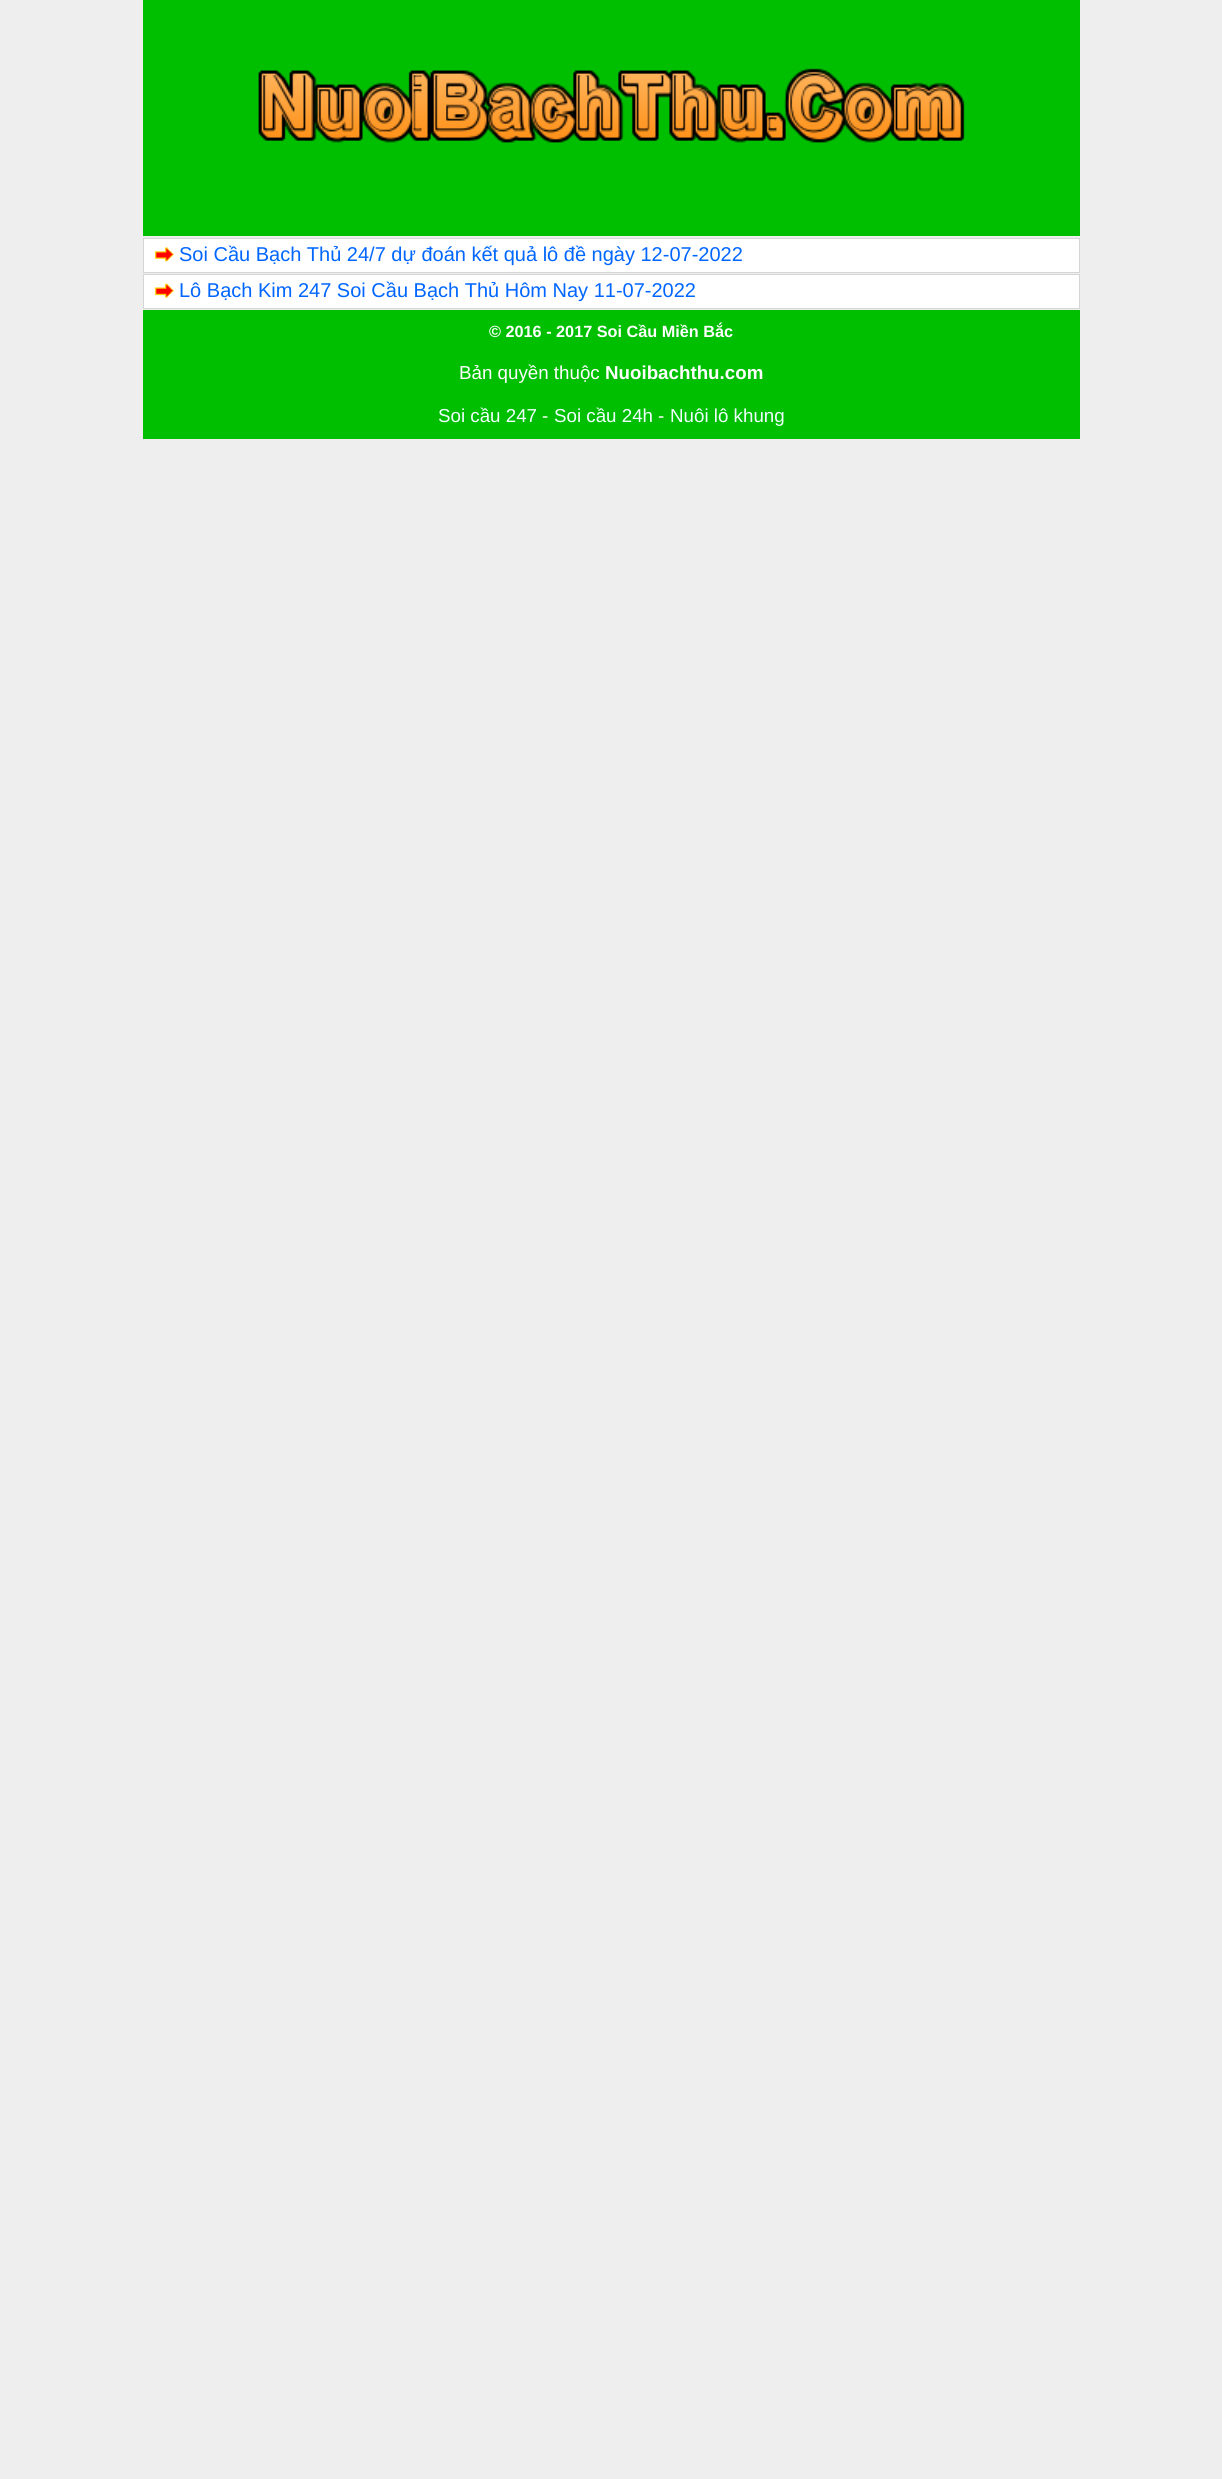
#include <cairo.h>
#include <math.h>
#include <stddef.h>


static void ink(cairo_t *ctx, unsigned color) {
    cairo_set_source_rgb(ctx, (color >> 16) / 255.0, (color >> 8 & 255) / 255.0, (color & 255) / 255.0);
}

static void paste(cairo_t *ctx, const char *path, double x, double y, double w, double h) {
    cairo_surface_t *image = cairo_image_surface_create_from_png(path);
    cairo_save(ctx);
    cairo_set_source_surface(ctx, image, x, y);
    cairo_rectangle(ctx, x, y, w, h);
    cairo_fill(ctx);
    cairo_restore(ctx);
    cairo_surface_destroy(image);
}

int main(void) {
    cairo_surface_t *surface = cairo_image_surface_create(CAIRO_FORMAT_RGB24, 1222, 2479);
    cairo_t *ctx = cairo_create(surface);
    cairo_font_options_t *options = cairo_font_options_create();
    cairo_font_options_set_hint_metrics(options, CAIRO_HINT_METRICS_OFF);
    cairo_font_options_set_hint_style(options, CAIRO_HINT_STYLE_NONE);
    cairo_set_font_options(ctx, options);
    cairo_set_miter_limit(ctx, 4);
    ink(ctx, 0xEEEEEE);
    cairo_paint(ctx);
    ink(ctx, 0x00BF00);
    cairo_rectangle(ctx, 143, 0, 937, 236);
    cairo_fill(ctx);
    paste(ctx, "media/1.png", 258, 68, 707, 75);
    ink(ctx, 0xFFFFFF);
    cairo_rectangle(ctx, 143.5, 238.5, 936, 34);
    cairo_fill_preserve(ctx);
    ink(ctx, 0xD5D5D5);
    cairo_set_line_width(ctx, 1);
    cairo_stroke(ctx);
    paste(ctx, "media/2.png", 154, 247, 20, 15);
    cairo_select_font_face(ctx, "Liberation Sans", CAIRO_FONT_SLANT_NORMAL, CAIRO_FONT_WEIGHT_NORMAL);
    cairo_set_font_size(ctx, 20);
    ink(ctx, 0x0066FF);
    cairo_move_to(ctx, 179, 261);
    cairo_show_text(ctx, "Soi Cầu Bạch Thủ 24/7 dự đoán kết quả lô đề ngày 12-07-2022");
    ink(ctx, 0xFFFFFF);
    cairo_rectangle(ctx, 143.5, 274.5, 936, 34);
    cairo_fill_preserve(ctx);
    ink(ctx, 0xD5D5D5);
    cairo_stroke(ctx);
    paste(ctx, "media/3.png", 154, 283, 20, 15);
    ink(ctx, 0x0066FF);
    cairo_move_to(ctx, 179, 297);
    cairo_show_text(ctx, "Lô Bạch Kim 247 Soi Cầu Bạch Thủ Hôm Nay 11-07-2022");
    ink(ctx, 0x00BF00);
    cairo_rectangle(ctx, 143, 310, 937, 129);
    cairo_fill(ctx);
    cairo_select_font_face(ctx, "Liberation Sans", CAIRO_FONT_SLANT_NORMAL, CAIRO_FONT_WEIGHT_BOLD);
    cairo_set_font_size(ctx, 16.25);
    ink(ctx, 0xFFFFFF);
    cairo_move_to(ctx, 489, 337);
    cairo_show_text(ctx, "© 2016 - 2017 Soi Cầu Miền Bắc");
    cairo_select_font_face(ctx, "Liberation Sans", CAIRO_FONT_SLANT_NORMAL, CAIRO_FONT_WEIGHT_NORMAL);
    cairo_set_font_size(ctx, 18.75);
    cairo_move_to(ctx, 459, 379);
    cairo_show_text(ctx, "Bản quyền thuộc");
    cairo_select_font_face(ctx, "Liberation Sans", CAIRO_FONT_SLANT_NORMAL, CAIRO_FONT_WEIGHT_BOLD);
    cairo_move_to(ctx, 605, 379);
    cairo_show_text(ctx, "Nuoibachthu.com");
    cairo_select_font_face(ctx, "Liberation Sans", CAIRO_FONT_SLANT_NORMAL, CAIRO_FONT_WEIGHT_NORMAL);
    ink(ctx, 0xF0FFFF);
    cairo_move_to(ctx, 438, 422);
    cairo_show_text(ctx, "Soi cầu 247");
    ink(ctx, 0xFFFFFF);
    cairo_move_to(ctx, 542, 422);
    cairo_show_text(ctx, "-");
    ink(ctx, 0xF0FFFF);
    cairo_move_to(ctx, 554, 422);
    cairo_show_text(ctx, "Soi cầu 24h");
    ink(ctx, 0xFFFFFF);
    cairo_move_to(ctx, 658, 422);
    cairo_show_text(ctx, "-");
    ink(ctx, 0xF0FFFF);
    cairo_move_to(ctx, 670, 422);
    cairo_show_text(ctx, "Nuôi lô khung");
    cairo_surface_write_to_png(surface, "image.png");
    cairo_font_options_destroy(options);
    cairo_destroy(ctx);
    cairo_surface_destroy(surface);
    return 0;
}
